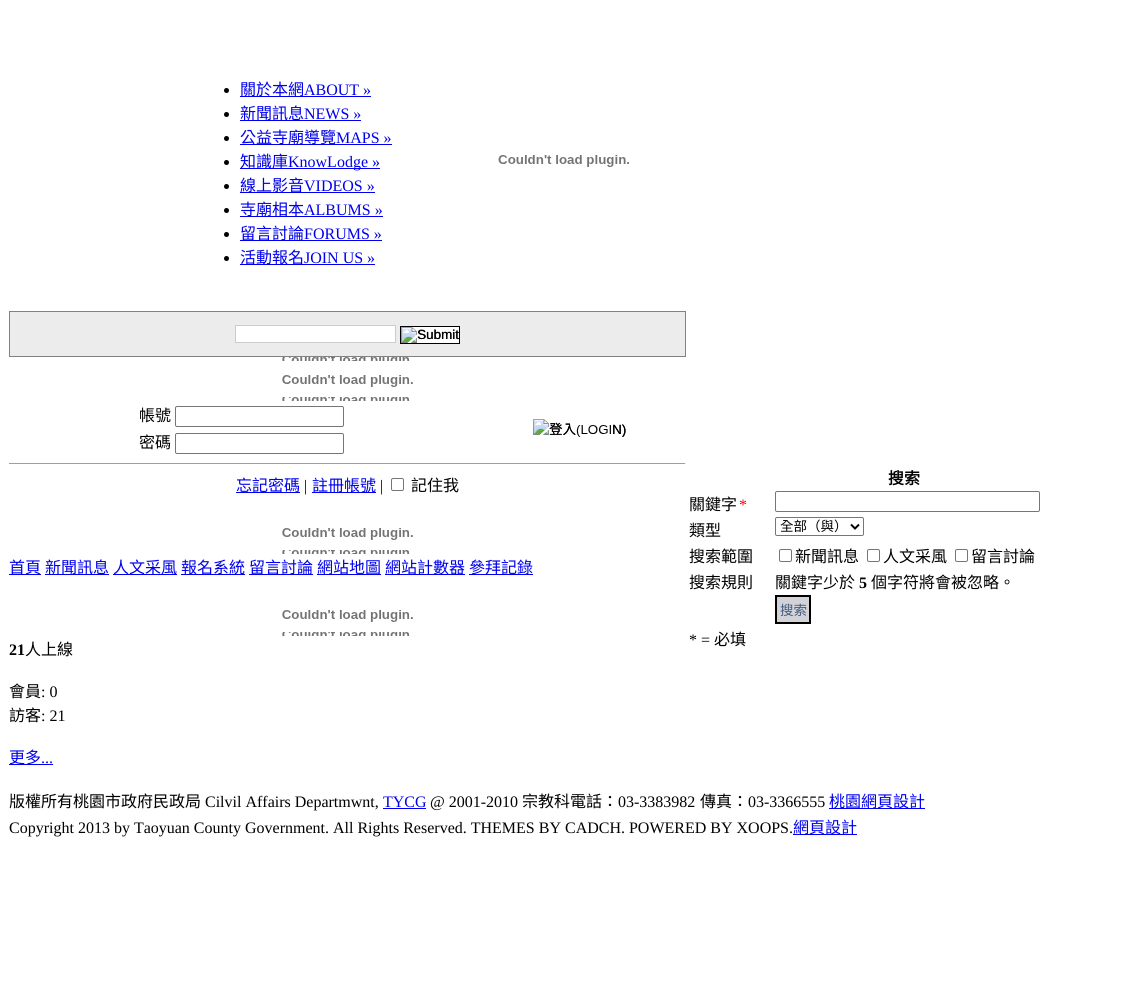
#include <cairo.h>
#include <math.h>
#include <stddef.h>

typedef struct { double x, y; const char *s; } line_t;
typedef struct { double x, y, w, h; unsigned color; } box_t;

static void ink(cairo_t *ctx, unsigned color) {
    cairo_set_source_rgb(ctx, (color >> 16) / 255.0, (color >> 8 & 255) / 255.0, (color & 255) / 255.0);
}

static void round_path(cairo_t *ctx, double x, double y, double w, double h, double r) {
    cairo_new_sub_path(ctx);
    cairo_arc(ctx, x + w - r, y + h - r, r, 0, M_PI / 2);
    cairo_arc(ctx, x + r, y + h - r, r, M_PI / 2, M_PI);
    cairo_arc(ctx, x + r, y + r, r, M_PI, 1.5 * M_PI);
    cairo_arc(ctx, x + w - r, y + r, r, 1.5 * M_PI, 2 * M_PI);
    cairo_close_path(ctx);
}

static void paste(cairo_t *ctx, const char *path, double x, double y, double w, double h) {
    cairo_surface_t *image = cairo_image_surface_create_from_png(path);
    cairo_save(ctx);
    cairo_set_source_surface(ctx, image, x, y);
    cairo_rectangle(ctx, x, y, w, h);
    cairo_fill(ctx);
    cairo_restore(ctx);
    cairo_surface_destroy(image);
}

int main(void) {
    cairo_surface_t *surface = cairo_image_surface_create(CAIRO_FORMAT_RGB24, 1128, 996);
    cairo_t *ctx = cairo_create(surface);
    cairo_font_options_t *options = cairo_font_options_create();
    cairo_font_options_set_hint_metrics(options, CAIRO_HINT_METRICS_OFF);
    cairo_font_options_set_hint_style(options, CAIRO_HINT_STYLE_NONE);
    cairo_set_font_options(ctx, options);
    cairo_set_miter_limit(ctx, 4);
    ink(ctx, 0xFFFFFF);
    cairo_paint(ctx);
    ink(ctx, 0x000000);
    cairo_arc(ctx, 226.5, 90.5, 2.5, 0, 2 * M_PI);
    cairo_fill(ctx);
    ink(ctx, 0x0000EE);
    cairo_rectangle(ctx, 240, 96, 131, 1);
    cairo_fill(ctx);
    cairo_select_font_face(ctx, "Noto Sans CJK TC", CAIRO_FONT_SLANT_NORMAL, CAIRO_FONT_WEIGHT_NORMAL);
    cairo_set_font_size(ctx, 16);
    cairo_move_to(ctx, 240, 95);
    cairo_show_text(ctx, "關於本網");
    cairo_select_font_face(ctx, "Liberation Serif", CAIRO_FONT_SLANT_NORMAL, CAIRO_FONT_WEIGHT_NORMAL);
    cairo_move_to(ctx, 304, 95);
    cairo_show_text(ctx, "ABOUT »");
    ink(ctx, 0x000000);
    cairo_new_path(ctx);
    cairo_arc(ctx, 226.5, 114.5, 2.5, 0, 2 * M_PI);
    cairo_fill(ctx);
    ink(ctx, 0x0000EE);
    cairo_rectangle(ctx, 240, 120, 121, 1);
    cairo_fill(ctx);
    cairo_select_font_face(ctx, "Noto Sans CJK TC", CAIRO_FONT_SLANT_NORMAL, CAIRO_FONT_WEIGHT_NORMAL);
    cairo_move_to(ctx, 240, 119);
    cairo_show_text(ctx, "新聞訊息");
    cairo_select_font_face(ctx, "Liberation Serif", CAIRO_FONT_SLANT_NORMAL, CAIRO_FONT_WEIGHT_NORMAL);
    cairo_move_to(ctx, 304, 119);
    cairo_show_text(ctx, "NEWS »");
    ink(ctx, 0x000000);
    cairo_new_path(ctx);
    cairo_arc(ctx, 226.5, 138.5, 2.5, 0, 2 * M_PI);
    cairo_fill(ctx);
    ink(ctx, 0x0000EE);
    cairo_rectangle(ctx, 240, 144, 152, 1);
    cairo_fill(ctx);
    cairo_select_font_face(ctx, "Noto Sans CJK TC", CAIRO_FONT_SLANT_NORMAL, CAIRO_FONT_WEIGHT_NORMAL);
    cairo_move_to(ctx, 240, 143);
    cairo_show_text(ctx, "公益寺廟導覽");
    cairo_select_font_face(ctx, "Liberation Serif", CAIRO_FONT_SLANT_NORMAL, CAIRO_FONT_WEIGHT_NORMAL);
    cairo_move_to(ctx, 336, 143);
    cairo_show_text(ctx, "MAPS »");
    ink(ctx, 0x000000);
    cairo_new_path(ctx);
    cairo_arc(ctx, 226.5, 162.5, 2.5, 0, 2 * M_PI);
    cairo_fill(ctx);
    ink(ctx, 0x0000EE);
    cairo_rectangle(ctx, 240, 168, 140, 1);
    cairo_fill(ctx);
    cairo_select_font_face(ctx, "Noto Sans CJK TC", CAIRO_FONT_SLANT_NORMAL, CAIRO_FONT_WEIGHT_NORMAL);
    cairo_move_to(ctx, 240, 167);
    cairo_show_text(ctx, "知識庫");
    cairo_select_font_face(ctx, "Liberation Serif", CAIRO_FONT_SLANT_NORMAL, CAIRO_FONT_WEIGHT_NORMAL);
    cairo_move_to(ctx, 288, 167);
    cairo_show_text(ctx, "KnowLodge »");
    ink(ctx, 0x000000);
    cairo_new_path(ctx);
    cairo_arc(ctx, 226.5, 186.5, 2.5, 0, 2 * M_PI);
    cairo_fill(ctx);
    ink(ctx, 0x0000EE);
    cairo_rectangle(ctx, 240, 192, 135, 1);
    cairo_fill(ctx);
    cairo_select_font_face(ctx, "Noto Sans CJK TC", CAIRO_FONT_SLANT_NORMAL, CAIRO_FONT_WEIGHT_NORMAL);
    cairo_move_to(ctx, 240, 191);
    cairo_show_text(ctx, "線上影音");
    cairo_select_font_face(ctx, "Liberation Serif", CAIRO_FONT_SLANT_NORMAL, CAIRO_FONT_WEIGHT_NORMAL);
    cairo_move_to(ctx, 304, 191);
    cairo_show_text(ctx, "VIDEOS »");
    ink(ctx, 0x000000);
    cairo_new_path(ctx);
    cairo_arc(ctx, 226.5, 210.5, 2.5, 0, 2 * M_PI);
    cairo_fill(ctx);
    ink(ctx, 0x0000EE);
    cairo_rectangle(ctx, 240, 216, 143, 1);
    cairo_fill(ctx);
    cairo_select_font_face(ctx, "Noto Sans CJK TC", CAIRO_FONT_SLANT_NORMAL, CAIRO_FONT_WEIGHT_NORMAL);
    cairo_move_to(ctx, 240, 215);
    cairo_show_text(ctx, "寺廟相本");
    cairo_select_font_face(ctx, "Liberation Serif", CAIRO_FONT_SLANT_NORMAL, CAIRO_FONT_WEIGHT_NORMAL);
    cairo_move_to(ctx, 304, 215);
    cairo_show_text(ctx, "ALBUMS »");
    ink(ctx, 0x000000);
    cairo_new_path(ctx);
    cairo_arc(ctx, 226.5, 234.5, 2.5, 0, 2 * M_PI);
    cairo_fill(ctx);
    ink(ctx, 0x0000EE);
    cairo_rectangle(ctx, 240, 240, 142, 1);
    cairo_fill(ctx);
    cairo_select_font_face(ctx, "Noto Sans CJK TC", CAIRO_FONT_SLANT_NORMAL, CAIRO_FONT_WEIGHT_NORMAL);
    cairo_move_to(ctx, 240, 239);
    cairo_show_text(ctx, "留言討論");
    cairo_select_font_face(ctx, "Liberation Serif", CAIRO_FONT_SLANT_NORMAL, CAIRO_FONT_WEIGHT_NORMAL);
    cairo_move_to(ctx, 304, 239);
    cairo_show_text(ctx, "FORUMS »");
    ink(ctx, 0x000000);
    cairo_new_path(ctx);
    cairo_arc(ctx, 226.5, 258.5, 2.5, 0, 2 * M_PI);
    cairo_fill(ctx);
    ink(ctx, 0x0000EE);
    cairo_rectangle(ctx, 240, 264, 135, 1);
    cairo_fill(ctx);
    cairo_select_font_face(ctx, "Noto Sans CJK TC", CAIRO_FONT_SLANT_NORMAL, CAIRO_FONT_WEIGHT_NORMAL);
    cairo_move_to(ctx, 240, 263);
    cairo_show_text(ctx, "活動報名");
    cairo_select_font_face(ctx, "Liberation Serif", CAIRO_FONT_SLANT_NORMAL, CAIRO_FONT_WEIGHT_NORMAL);
    cairo_move_to(ctx, 304, 263);
    cairo_show_text(ctx, "JOIN US »");
    paste(ctx, "media/1.png", 498, 155, 131, 12);
    {
        static const box_t items[] = {
            {10, 312, 675, 44, 0xECECEC},
            {9, 311, 677, 1, 0x828282},
            {685, 311, 1, 46, 0x828282},
            {9, 356, 677, 1, 0x828282},
            {9, 311, 1, 46, 0x828282},
        };
        for (size_t i = 0; i < sizeof items / sizeof *items; i++) {
            ink(ctx, items[i].color);
            cairo_rectangle(ctx, items[i].x, items[i].y, items[i].w, items[i].h);
            cairo_fill(ctx);
        }
    }
    ink(ctx, 0xFFFFFF);
    cairo_rectangle(ctx, 235.5, 325.5, 160, 17);
    cairo_fill_preserve(ctx);
    ink(ctx, 0xCCCCCC);
    cairo_set_line_width(ctx, 1);
    cairo_stroke(ctx);
    ink(ctx, 0xFFFFFF);
    cairo_rectangle(ctx, 407, 327, 52, 16);
    cairo_fill(ctx);
    cairo_rectangle(ctx, 400.5, 326.5, 59, 17);
    ink(ctx, 0x000000);
    cairo_stroke(ctx);
    paste(ctx, "media/2.png", 401, 327, 58, 16);
    cairo_select_font_face(ctx, "Liberation Sans", CAIRO_FONT_SLANT_NORMAL, CAIRO_FONT_WEIGHT_NORMAL);
    cairo_set_font_size(ctx, 13.5);
    cairo_move_to(ctx, 417, 339);
    cairo_show_text(ctx, "Submit");
    paste(ctx, "media/3.png", 282, 357, 128, 4);
    paste(ctx, "media/4.png", 282, 375, 131, 12);
    paste(ctx, "media/3.png", 282, 397, 128, 4);
    cairo_select_font_face(ctx, "Noto Sans CJK TC", CAIRO_FONT_SLANT_NORMAL, CAIRO_FONT_WEIGHT_NORMAL);
    cairo_set_font_size(ctx, 16);
    cairo_move_to(ctx, 139, 421);
    cairo_show_text(ctx, "帳號");
    round_path(ctx, 175.5, 406.5, 168, 20, 1.5);
    ink(ctx, 0x767676);
    cairo_stroke(ctx);
    paste(ctx, "media/5.png", 533, 419, 93, 18);
    cairo_set_font_size(ctx, 13.5);
    ink(ctx, 0x000000);
    cairo_move_to(ctx, 549, 434);
    cairo_show_text(ctx, "登入");
    cairo_select_font_face(ctx, "Liberation Sans", CAIRO_FONT_SLANT_NORMAL, CAIRO_FONT_WEIGHT_NORMAL);
    cairo_move_to(ctx, 612, 434);
    cairo_show_text(ctx, "N)");
    cairo_select_font_face(ctx, "Noto Sans CJK TC", CAIRO_FONT_SLANT_NORMAL, CAIRO_FONT_WEIGHT_NORMAL);
    cairo_set_font_size(ctx, 16);
    cairo_move_to(ctx, 139, 448);
    cairo_show_text(ctx, "密碼");
    round_path(ctx, 175.5, 433.5, 168, 20, 1.5);
    ink(ctx, 0x767676);
    cairo_stroke(ctx);
    {
        static const box_t items[] = {
            {9, 463, 677, 1, 0x9F9F9F},
            {685, 463, 1, 1, 0xEEEEEE},
            {236, 492, 64, 1, 0x0000EE},
        };
        for (size_t i = 0; i < sizeof items / sizeof *items; i++) {
            ink(ctx, items[i].color);
            cairo_rectangle(ctx, items[i].x, items[i].y, items[i].w, items[i].h);
            cairo_fill(ctx);
        }
    }
    cairo_move_to(ctx, 236, 491);
    cairo_show_text(ctx, "忘記密碼");
    cairo_select_font_face(ctx, "Liberation Serif", CAIRO_FONT_SLANT_NORMAL, CAIRO_FONT_WEIGHT_NORMAL);
    ink(ctx, 0x000000);
    cairo_move_to(ctx, 304, 491);
    cairo_show_text(ctx, "|");
    ink(ctx, 0x0000EE);
    cairo_rectangle(ctx, 312, 492, 64, 1);
    cairo_fill(ctx);
    cairo_select_font_face(ctx, "Noto Sans CJK TC", CAIRO_FONT_SLANT_NORMAL, CAIRO_FONT_WEIGHT_NORMAL);
    cairo_move_to(ctx, 312, 491);
    cairo_show_text(ctx, "註冊帳號");
    cairo_select_font_face(ctx, "Liberation Serif", CAIRO_FONT_SLANT_NORMAL, CAIRO_FONT_WEIGHT_NORMAL);
    ink(ctx, 0x000000);
    cairo_move_to(ctx, 380, 491);
    cairo_show_text(ctx, "|");
    round_path(ctx, 391.5, 478.5, 12, 12, 1.5);
    ink(ctx, 0x767676);
    cairo_stroke(ctx);
    cairo_select_font_face(ctx, "Noto Sans CJK TC", CAIRO_FONT_SLANT_NORMAL, CAIRO_FONT_WEIGHT_NORMAL);
    ink(ctx, 0x000000);
    cairo_move_to(ctx, 411, 491);
    cairo_show_text(ctx, "記住我");
    paste(ctx, "media/4.png", 282, 528, 131, 12);
    paste(ctx, "media/3.png", 282, 550, 128, 4);
    ink(ctx, 0x0000EE);
    cairo_rectangle(ctx, 9, 574, 32, 1);
    cairo_fill(ctx);
    cairo_move_to(ctx, 9, 573);
    cairo_show_text(ctx, "首頁");
    cairo_rectangle(ctx, 45, 574, 64, 1);
    cairo_fill(ctx);
    cairo_move_to(ctx, 45, 573);
    cairo_show_text(ctx, "新聞訊息");
    cairo_rectangle(ctx, 113, 574, 64, 1);
    cairo_fill(ctx);
    cairo_move_to(ctx, 113, 573);
    cairo_show_text(ctx, "人文采風");
    cairo_rectangle(ctx, 181, 574, 64, 1);
    cairo_fill(ctx);
    cairo_move_to(ctx, 181, 573);
    cairo_show_text(ctx, "報名系統");
    cairo_rectangle(ctx, 249, 574, 64, 1);
    cairo_fill(ctx);
    cairo_move_to(ctx, 249, 573);
    cairo_show_text(ctx, "留言討論");
    cairo_rectangle(ctx, 317, 574, 64, 1);
    cairo_fill(ctx);
    cairo_move_to(ctx, 317, 573);
    cairo_show_text(ctx, "網站地圖");
    cairo_rectangle(ctx, 385, 574, 80, 1);
    cairo_fill(ctx);
    cairo_move_to(ctx, 385, 573);
    cairo_show_text(ctx, "網站計數器");
    cairo_rectangle(ctx, 469, 574, 64, 1);
    cairo_fill(ctx);
    cairo_move_to(ctx, 469, 573);
    cairo_show_text(ctx, "參拜記錄");
    paste(ctx, "media/4.png", 282, 610, 131, 12);
    paste(ctx, "media/3.png", 282, 632, 128, 4);
    cairo_select_font_face(ctx, "Liberation Serif", CAIRO_FONT_SLANT_NORMAL, CAIRO_FONT_WEIGHT_BOLD);
    ink(ctx, 0x000000);
    cairo_move_to(ctx, 9, 655);
    cairo_show_text(ctx, "21");
    cairo_select_font_face(ctx, "Noto Sans CJK TC", CAIRO_FONT_SLANT_NORMAL, CAIRO_FONT_WEIGHT_NORMAL);
    cairo_move_to(ctx, 25, 655);
    cairo_show_text(ctx, "人上線");
    cairo_move_to(ctx, 9, 697);
    cairo_show_text(ctx, "會員");
    cairo_select_font_face(ctx, "Liberation Serif", CAIRO_FONT_SLANT_NORMAL, CAIRO_FONT_WEIGHT_NORMAL);
    cairo_move_to(ctx, 41, 697);
    cairo_show_text(ctx, ": 0");
    cairo_select_font_face(ctx, "Noto Sans CJK TC", CAIRO_FONT_SLANT_NORMAL, CAIRO_FONT_WEIGHT_NORMAL);
    cairo_move_to(ctx, 9, 721);
    cairo_show_text(ctx, "訪客");
    cairo_select_font_face(ctx, "Liberation Serif", CAIRO_FONT_SLANT_NORMAL, CAIRO_FONT_WEIGHT_NORMAL);
    cairo_move_to(ctx, 41, 721);
    cairo_show_text(ctx, ": 21");
    ink(ctx, 0x0000EE);
    cairo_rectangle(ctx, 9, 764, 44, 1);
    cairo_fill(ctx);
    cairo_select_font_face(ctx, "Noto Sans CJK TC", CAIRO_FONT_SLANT_NORMAL, CAIRO_FONT_WEIGHT_NORMAL);
    cairo_move_to(ctx, 9, 763);
    cairo_show_text(ctx, "更多");
    cairo_select_font_face(ctx, "Liberation Serif", CAIRO_FONT_SLANT_NORMAL, CAIRO_FONT_WEIGHT_NORMAL);
    cairo_move_to(ctx, 41, 763);
    cairo_show_text(ctx, "...");
    cairo_select_font_face(ctx, "Noto Sans CJK TC", CAIRO_FONT_SLANT_NORMAL, CAIRO_FONT_WEIGHT_BOLD);
    ink(ctx, 0x000000);
    cairo_move_to(ctx, 888, 484);
    cairo_show_text(ctx, "搜索");
    cairo_select_font_face(ctx, "Noto Sans CJK TC", CAIRO_FONT_SLANT_NORMAL, CAIRO_FONT_WEIGHT_NORMAL);
    cairo_move_to(ctx, 689, 510);
    cairo_show_text(ctx, "關鍵字");
    cairo_select_font_face(ctx, "Liberation Serif", CAIRO_FONT_SLANT_NORMAL, CAIRO_FONT_WEIGHT_NORMAL);
    ink(ctx, 0xFF0000);
    cairo_move_to(ctx, 739, 510);
    cairo_show_text(ctx, "*");
    round_path(ctx, 775.5, 491.5, 264, 20, 1.5);
    ink(ctx, 0x767676);
    cairo_stroke(ctx);
    cairo_select_font_face(ctx, "Noto Sans CJK TC", CAIRO_FONT_SLANT_NORMAL, CAIRO_FONT_WEIGHT_NORMAL);
    ink(ctx, 0x000000);
    cairo_move_to(ctx, 689, 536);
    cairo_show_text(ctx, "類型");
    round_path(ctx, 775.5, 517.5, 88, 18, 1.5);
    ink(ctx, 0x767676);
    cairo_stroke(ctx);
    cairo_new_path(ctx);
    cairo_move_to(ctx, 851, 524.5);
    cairo_line_to(ctx, 855, 528.5);
    cairo_line_to(ctx, 859, 524.5);
    ink(ctx, 0x000000);
    cairo_set_line_width(ctx, 2);
    cairo_stroke(ctx);
    cairo_set_font_size(ctx, 13.5);
    cairo_move_to(ctx, 780, 531);
    cairo_show_text(ctx, "全部（與）");
    cairo_set_font_size(ctx, 16);
    cairo_move_to(ctx, 689, 562);
    cairo_show_text(ctx, "搜索範圍");
    round_path(ctx, 779.5, 549.5, 12, 12, 1.5);
    ink(ctx, 0x767676);
    cairo_set_line_width(ctx, 1);
    cairo_stroke(ctx);
    ink(ctx, 0x000000);
    cairo_move_to(ctx, 795, 562);
    cairo_show_text(ctx, "新聞訊息");
    round_path(ctx, 867.5, 549.5, 12, 12, 1.5);
    ink(ctx, 0x767676);
    cairo_stroke(ctx);
    ink(ctx, 0x000000);
    cairo_move_to(ctx, 883, 562);
    cairo_show_text(ctx, "人文采風");
    round_path(ctx, 955.5, 549.5, 12, 12, 1.5);
    ink(ctx, 0x767676);
    cairo_stroke(ctx);
    ink(ctx, 0x000000);
    {
        static const line_t items[] = {
            {971, 562, "留言討論"},
            {689, 588, "搜索規則"},
            {775, 588, "關鍵字少於"},
        };
        for (size_t i = 0; i < sizeof items / sizeof *items; i++) {
            cairo_move_to(ctx, items[i].x, items[i].y);
            cairo_show_text(ctx, items[i].s);
        }
    }
    cairo_select_font_face(ctx, "Liberation Serif", CAIRO_FONT_SLANT_NORMAL, CAIRO_FONT_WEIGHT_BOLD);
    cairo_move_to(ctx, 859, 588);
    cairo_show_text(ctx, "5");
    cairo_select_font_face(ctx, "Noto Sans CJK TC", CAIRO_FONT_SLANT_NORMAL, CAIRO_FONT_WEIGHT_NORMAL);
    cairo_move_to(ctx, 871, 588);
    cairo_show_text(ctx, "個字符將會被忽略。");
    ink(ctx, 0xD3D2D6);
    cairo_rectangle(ctx, 776, 596, 34, 27);
    cairo_fill_preserve(ctx);
    ink(ctx, 0x000000);
    cairo_set_line_width(ctx, 2);
    cairo_stroke(ctx);
    cairo_set_font_size(ctx, 13.5);
    ink(ctx, 0x405A80);
    cairo_move_to(ctx, 780, 615);
    cairo_show_text(ctx, "搜索");
    cairo_select_font_face(ctx, "Liberation Serif", CAIRO_FONT_SLANT_NORMAL, CAIRO_FONT_WEIGHT_NORMAL);
    cairo_set_font_size(ctx, 16);
    ink(ctx, 0x000000);
    cairo_move_to(ctx, 689, 645);
    cairo_show_text(ctx, "* =");
    cairo_select_font_face(ctx, "Noto Sans CJK TC", CAIRO_FONT_SLANT_NORMAL, CAIRO_FONT_WEIGHT_NORMAL);
    cairo_move_to(ctx, 714, 645);
    cairo_show_text(ctx, "必填");
    cairo_move_to(ctx, 9, 807);
    cairo_show_text(ctx, "版權所有桃園市政府民政局");
    cairo_select_font_face(ctx, "Liberation Serif", CAIRO_FONT_SLANT_NORMAL, CAIRO_FONT_WEIGHT_NORMAL);
    cairo_move_to(ctx, 205, 807);
    cairo_show_text(ctx, "Cilvil Affairs Departmwnt,");
    ink(ctx, 0x0000EE);
    cairo_move_to(ctx, 383, 807);
    cairo_show_text(ctx, "TYCG");
    cairo_rectangle(ctx, 383, 808, 43, 1);
    cairo_fill(ctx);
    ink(ctx, 0x000000);
    cairo_move_to(ctx, 430, 807);
    cairo_show_text(ctx, "@ 2001-2010");
    cairo_select_font_face(ctx, "Noto Sans CJK TC", CAIRO_FONT_SLANT_NORMAL, CAIRO_FONT_WEIGHT_NORMAL);
    cairo_move_to(ctx, 522, 807);
    cairo_show_text(ctx, "宗教科電話：");
    cairo_select_font_face(ctx, "Liberation Serif", CAIRO_FONT_SLANT_NORMAL, CAIRO_FONT_WEIGHT_NORMAL);
    cairo_move_to(ctx, 618, 807);
    cairo_show_text(ctx, "03-3383982");
    cairo_select_font_face(ctx, "Noto Sans CJK TC", CAIRO_FONT_SLANT_NORMAL, CAIRO_FONT_WEIGHT_NORMAL);
    cairo_move_to(ctx, 700, 807);
    cairo_show_text(ctx, "傳真：");
    cairo_select_font_face(ctx, "Liberation Serif", CAIRO_FONT_SLANT_NORMAL, CAIRO_FONT_WEIGHT_NORMAL);
    cairo_move_to(ctx, 748, 807);
    cairo_show_text(ctx, "03-3366555");
    ink(ctx, 0x0000EE);
    cairo_rectangle(ctx, 829, 808, 96, 1);
    cairo_fill(ctx);
    cairo_select_font_face(ctx, "Noto Sans CJK TC", CAIRO_FONT_SLANT_NORMAL, CAIRO_FONT_WEIGHT_NORMAL);
    cairo_move_to(ctx, 829, 807);
    cairo_show_text(ctx, "桃園網頁設計");
    cairo_select_font_face(ctx, "Liberation Serif", CAIRO_FONT_SLANT_NORMAL, CAIRO_FONT_WEIGHT_NORMAL);
    ink(ctx, 0x000000);
    cairo_move_to(ctx, 9, 833);
    cairo_show_text(ctx, "Copyright 2013 by Taoyuan County Government. All Rights Reserved. THEMES BY CADCH. POWERED BY XOOPS.");
    ink(ctx, 0x0000EE);
    cairo_rectangle(ctx, 793, 834, 64, 1);
    cairo_fill(ctx);
    cairo_select_font_face(ctx, "Noto Sans CJK TC", CAIRO_FONT_SLANT_NORMAL, CAIRO_FONT_WEIGHT_NORMAL);
    cairo_move_to(ctx, 793, 833);
    cairo_show_text(ctx, "網頁設計");
    cairo_surface_write_to_png(surface, "image.png");
    cairo_font_options_destroy(options);
    cairo_destroy(ctx);
    cairo_surface_destroy(surface);
    return 0;
}
